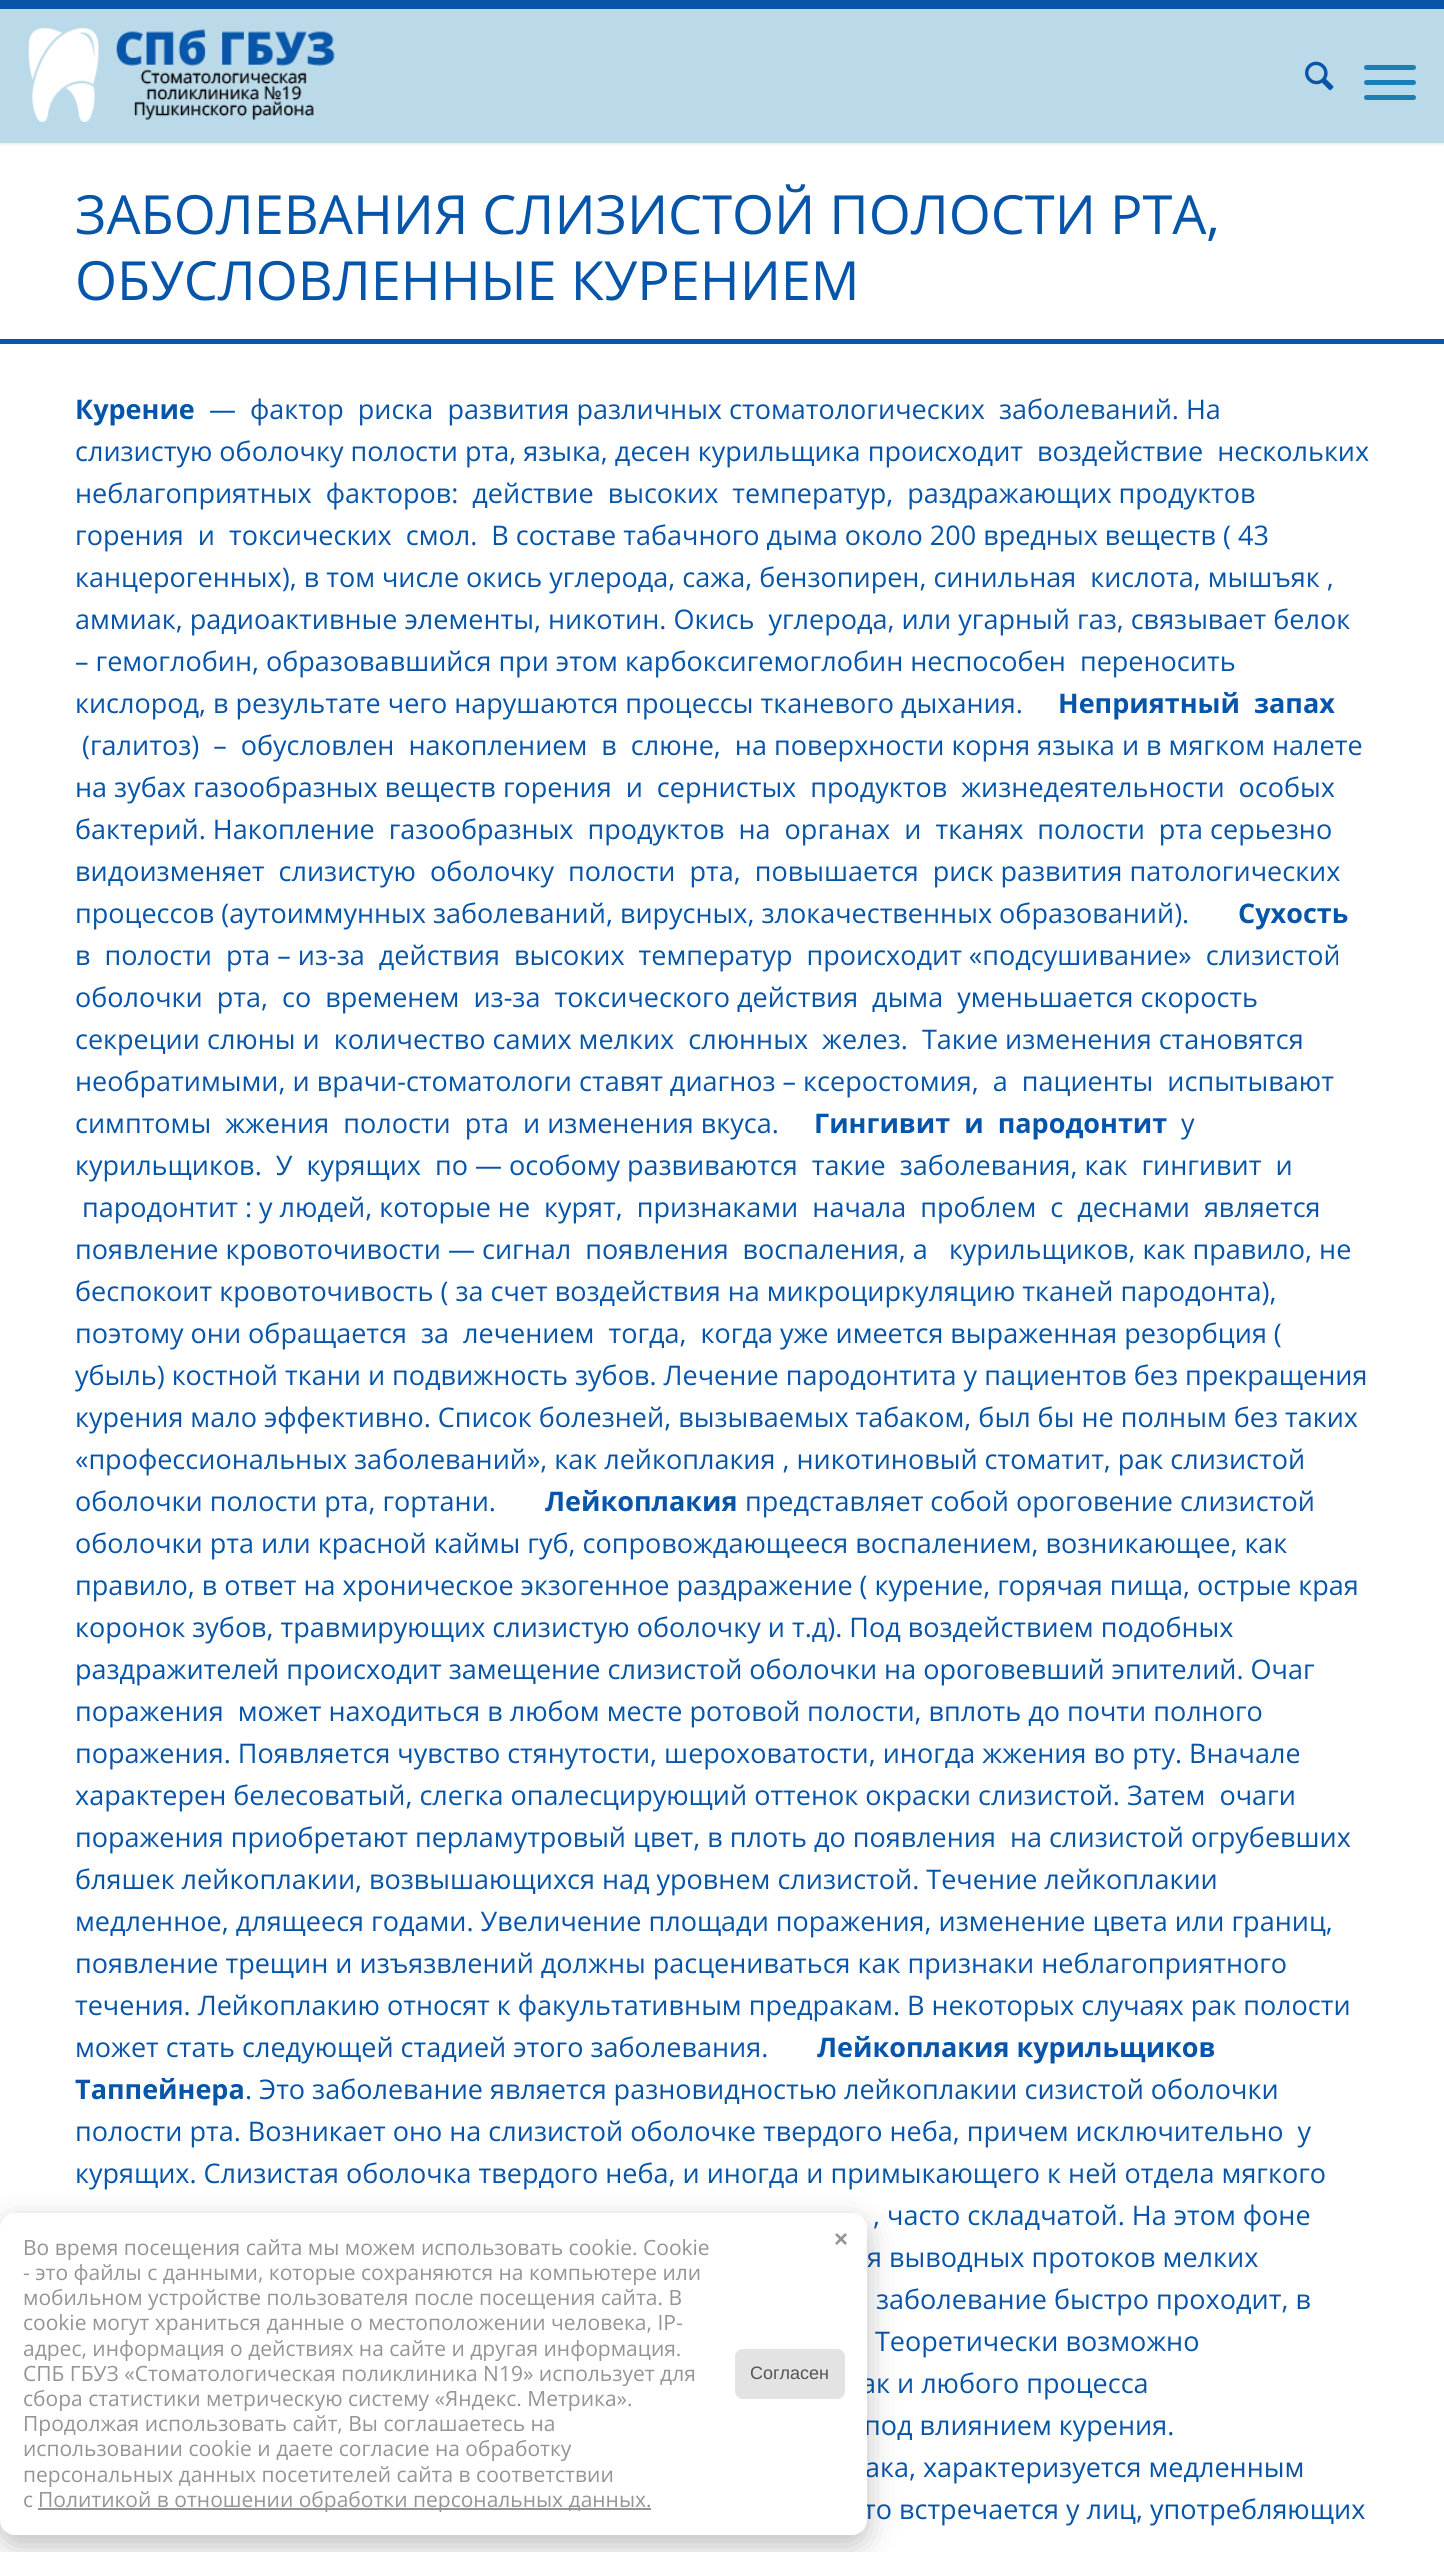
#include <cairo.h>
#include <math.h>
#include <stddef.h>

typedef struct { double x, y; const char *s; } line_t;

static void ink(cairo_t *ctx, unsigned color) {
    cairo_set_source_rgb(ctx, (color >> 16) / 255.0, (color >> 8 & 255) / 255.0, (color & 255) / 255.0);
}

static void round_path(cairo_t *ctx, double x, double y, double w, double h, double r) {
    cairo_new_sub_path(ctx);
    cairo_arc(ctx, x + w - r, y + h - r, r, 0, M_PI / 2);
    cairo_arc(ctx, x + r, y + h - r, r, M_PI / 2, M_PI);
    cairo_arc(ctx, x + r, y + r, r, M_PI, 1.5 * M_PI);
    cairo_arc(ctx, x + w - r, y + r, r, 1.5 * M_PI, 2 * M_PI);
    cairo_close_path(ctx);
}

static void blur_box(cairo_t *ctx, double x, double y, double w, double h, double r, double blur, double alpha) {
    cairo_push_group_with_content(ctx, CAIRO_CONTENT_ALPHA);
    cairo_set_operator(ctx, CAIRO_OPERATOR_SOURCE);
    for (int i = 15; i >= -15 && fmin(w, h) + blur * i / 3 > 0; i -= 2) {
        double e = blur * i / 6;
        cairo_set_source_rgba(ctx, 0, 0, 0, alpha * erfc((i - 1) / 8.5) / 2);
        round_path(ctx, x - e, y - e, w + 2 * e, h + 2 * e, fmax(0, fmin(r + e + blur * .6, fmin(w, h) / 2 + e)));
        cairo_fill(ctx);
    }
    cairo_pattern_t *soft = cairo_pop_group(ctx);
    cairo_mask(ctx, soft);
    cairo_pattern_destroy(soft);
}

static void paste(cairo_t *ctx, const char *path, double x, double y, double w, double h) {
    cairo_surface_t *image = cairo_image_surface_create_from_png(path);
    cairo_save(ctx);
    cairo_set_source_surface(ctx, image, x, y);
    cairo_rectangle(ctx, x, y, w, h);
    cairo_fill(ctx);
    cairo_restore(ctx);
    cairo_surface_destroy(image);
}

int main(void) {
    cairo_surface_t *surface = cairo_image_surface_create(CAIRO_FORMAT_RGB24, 1444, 2552);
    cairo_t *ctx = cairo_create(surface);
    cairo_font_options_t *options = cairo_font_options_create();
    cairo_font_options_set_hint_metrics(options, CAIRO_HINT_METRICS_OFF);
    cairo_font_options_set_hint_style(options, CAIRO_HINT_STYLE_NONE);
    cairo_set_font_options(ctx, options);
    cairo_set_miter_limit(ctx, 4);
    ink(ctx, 0xFFFFFF);
    cairo_paint(ctx);
    ink(ctx, 0x000000);
    blur_box(ctx, -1, -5, 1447, 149, 0, 1.5, 0.1);
    ink(ctx, 0x0755A9);
    cairo_rectangle(ctx, 0, 0, 1444, 9);
    cairo_fill(ctx);
    ink(ctx, 0xBAD9E9);
    cairo_rectangle(ctx, 0, 9, 1444, 134);
    cairo_fill(ctx);
    paste(ctx, "media/1.png", 28, 28, 307, 94);
    paste(ctx, "media/2.png", 1305, 61, 29, 30);
    ink(ctx, 0x1A7FB6);
    round_path(ctx, 1364, 80, 52, 5, 2.5);
    cairo_fill(ctx);
    round_path(ctx, 1364, 65, 52, 5, 2.5);
    cairo_fill(ctx);
    round_path(ctx, 1364, 95, 52, 5, 2.5);
    cairo_fill(ctx);
    ink(ctx, 0x0756A9);
    cairo_rectangle(ctx, 0, 339, 1444, 5);
    cairo_fill(ctx);
    cairo_select_font_face(ctx, "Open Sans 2", CAIRO_FONT_SLANT_NORMAL, CAIRO_FONT_WEIGHT_NORMAL);
    cairo_set_font_size(ctx, 54);
    ink(ctx, 0x0755A9);
    cairo_move_to(ctx, 75, 234);
    cairo_show_text(ctx, "ЗАБОЛЕВАНИЯ СЛИЗИСТОЙ ПОЛОСТИ РТА,");
    cairo_move_to(ctx, 75, 300);
    cairo_show_text(ctx, "ОБУСЛОВЛЕННЫЕ КУРЕНИЕМ");
    cairo_select_font_face(ctx, "Open Sans", CAIRO_FONT_SLANT_NORMAL, CAIRO_FONT_WEIGHT_BOLD);
    cairo_set_font_size(ctx, 27);
    cairo_move_to(ctx, 75, 419);
    cairo_show_text(ctx, "Курение");
    cairo_select_font_face(ctx, "Open Sans", CAIRO_FONT_SLANT_NORMAL, CAIRO_FONT_WEIGHT_NORMAL);
    {
        static const line_t items[] = {
            {209, 419, "—  фактор  риска  развития различных стоматологических  заболеваний. На"},
            {75, 461, "слизистую оболочку полости рта, языка, десен курильщика происходит  воздействие  нескольких"},
            {75, 503, "неблагоприятных  факторов:  действие  высоких  температур,  раздражающих продуктов"},
            {75, 545, "горения  и  токсических  смол.  В составе табачного дыма около 200 вредных веществ ( 43"},
            {75, 587, "канцерогенных), в том числе окись углерода, сажа, бензопирен, синильная  кислота, мышъяк ,"},
            {75, 629, "аммиак, радиоактивные элементы, никотин. Окись  углерода, или угарный газ, связывает белок"},
            {75, 671, "– гемоглобин, образовавшийся при этом карбоксигемоглобин неспособен  переносить"},
            {75, 713, "кислород, в результате чего нарушаются процессы тканевого дыхания."},
        };
        for (size_t i = 0; i < sizeof items / sizeof *items; i++) {
            cairo_move_to(ctx, items[i].x, items[i].y);
            cairo_show_text(ctx, items[i].s);
        }
    }
    cairo_select_font_face(ctx, "Open Sans", CAIRO_FONT_SLANT_NORMAL, CAIRO_FONT_WEIGHT_BOLD);
    cairo_move_to(ctx, 1058, 713);
    cairo_show_text(ctx, "Неприятный  запах");
    cairo_select_font_face(ctx, "Open Sans", CAIRO_FONT_SLANT_NORMAL, CAIRO_FONT_WEIGHT_NORMAL);
    {
        static const line_t items[] = {
            {82, 755, "(галитоз)  –  обусловлен  накоплением  в  слюне,  на поверхности корня языка и в мягком налете"},
            {75, 797, "на зубах газообразных веществ горения  и  сернистых  продуктов  жизнедеятельности  особых"},
            {75, 839, "бактерий. Накопление  газообразных  продуктов  на  органах  и  тканях  полости  рта серьезно"},
            {75, 881, "видоизменяет  слизистую  оболочку  полости  рта,  повышается  риск развития патологических"},
            {75, 923, "процессов (аутоиммунных заболеваний, вирусных, злокачественных образований)."},
        };
        for (size_t i = 0; i < sizeof items / sizeof *items; i++) {
            cairo_move_to(ctx, items[i].x, items[i].y);
            cairo_show_text(ctx, items[i].s);
        }
    }
    cairo_select_font_face(ctx, "Open Sans", CAIRO_FONT_SLANT_NORMAL, CAIRO_FONT_WEIGHT_BOLD);
    cairo_move_to(ctx, 1238, 923);
    cairo_show_text(ctx, "Сухость");
    cairo_select_font_face(ctx, "Open Sans", CAIRO_FONT_SLANT_NORMAL, CAIRO_FONT_WEIGHT_NORMAL);
    {
        static const line_t items[] = {
            {75, 965, "в  полости  рта – из-за  действия  высоких  температур  происходит «подсушивание»  слизистой"},
            {75, 1007, "оболочки  рта,  со  временем  из-за  токсического действия  дыма  уменьшается скорость"},
            {75, 1049, "секреции слюны и  количество самих мелких  слюнных  желез.  Такие изменения становятся"},
            {75, 1091, "необратимыми, и врачи-стоматологи ставят диагноз – ксеростомия,  а  пациенты  испытывают"},
            {75, 1133, "симптомы  жжения  полости  рта  и изменения вкуса."},
        };
        for (size_t i = 0; i < sizeof items / sizeof *items; i++) {
            cairo_move_to(ctx, items[i].x, items[i].y);
            cairo_show_text(ctx, items[i].s);
        }
    }
    cairo_select_font_face(ctx, "Open Sans", CAIRO_FONT_SLANT_NORMAL, CAIRO_FONT_WEIGHT_BOLD);
    cairo_move_to(ctx, 814, 1133);
    cairo_show_text(ctx, "Гингивит  и  пародонтит");
    cairo_select_font_face(ctx, "Open Sans", CAIRO_FONT_SLANT_NORMAL, CAIRO_FONT_WEIGHT_NORMAL);
    {
        static const line_t items[] = {
            {1181, 1133, "у"},
            {75, 1175, "курильщиков.  У  курящих  по — особому развиваются  такие  заболевания, как  гингивит  и"},
            {82, 1217, "пародонтит : у людей, которые не  курят,  признаками  начала  проблем  с  деснами  является"},
            {75, 1259, "появление кровоточивости — сигнал  появления  воспаления, а   курильщиков, как правило, не"},
            {75, 1301, "беспокоит кровоточивость ( за счет воздействия на микроциркуляцию тканей пародонта),"},
            {75, 1343, "поэтому они обращается  за  лечением  тогда,  когда уже имеется выраженная резорбция ("},
            {75, 1385, "убыль) костной ткани и подвижность зубов. Лечение пародонтита у пациентов без прекращения"},
            {75, 1427, "курения мало эффективно. Список болезней, вызываемых табаком, был бы не полным без таких"},
            {75, 1469, "«профессиональных заболеваний», как лейкоплакия , никотиновый стоматит, рак слизистой"},
            {75, 1511, "оболочки полости рта, гортани."},
        };
        for (size_t i = 0; i < sizeof items / sizeof *items; i++) {
            cairo_move_to(ctx, items[i].x, items[i].y);
            cairo_show_text(ctx, items[i].s);
        }
    }
    cairo_select_font_face(ctx, "Open Sans", CAIRO_FONT_SLANT_NORMAL, CAIRO_FONT_WEIGHT_BOLD);
    cairo_move_to(ctx, 545, 1511);
    cairo_show_text(ctx, "Лейкоплакия");
    cairo_select_font_face(ctx, "Open Sans", CAIRO_FONT_SLANT_NORMAL, CAIRO_FONT_WEIGHT_NORMAL);
    {
        static const line_t items[] = {
            {745, 1511, "представляет собой ороговение слизистой"},
            {75, 1553, "оболочки рта или красной каймы губ, сопровождающееся воспалением, возникающее, как"},
            {75, 1595, "правило, в ответ на хроническое экзогенное раздражение ( курение, горячая пища, острые края"},
            {75, 1637, "коронок зубов, травмирующих слизистую оболочку и т.д). Под воздействием подобных"},
            {75, 1679, "раздражителей происходит замещение слизистой оболочки на ороговевший эпителий. Очаг"},
            {75, 1721, "поражения  может находиться в любом месте ротовой полости, вплоть до почти полного"},
            {75, 1763, "поражения. Появляется чувство стянутости, шероховатости, иногда жжения во рту. Вначале"},
            {75, 1805, "характерен белесоватый, слегка опалесцирующий оттенок окраски слизистой. Затем  очаги"},
            {75, 1847, "поражения приобретают перламутровый цвет, в плоть до появления  на слизистой огрубевших"},
            {75, 1889, "бляшек лейкоплакии, возвышающихся над уровнем слизистой. Течение лейкоплакии"},
            {75, 1931, "медленное, длящееся годами. Увеличение площади поражения, изменение цвета или границ,"},
            {75, 1973, "появление трещин и изъязвлений должны расцениваться как признаки неблагоприятного"},
            {75, 2015, "течения. Лейкоплакию относят к факультативным предракам. В некоторых случаях рак полости"},
            {75, 2057, "может стать следующей стадией этого заболевания."},
        };
        for (size_t i = 0; i < sizeof items / sizeof *items; i++) {
            cairo_move_to(ctx, items[i].x, items[i].y);
            cairo_show_text(ctx, items[i].s);
        }
    }
    cairo_select_font_face(ctx, "Open Sans", CAIRO_FONT_SLANT_NORMAL, CAIRO_FONT_WEIGHT_BOLD);
    cairo_move_to(ctx, 817, 2057);
    cairo_show_text(ctx, "Лейкоплакия курильщиков");
    cairo_move_to(ctx, 75, 2099);
    cairo_show_text(ctx, "Таппейнера");
    cairo_select_font_face(ctx, "Open Sans", CAIRO_FONT_SLANT_NORMAL, CAIRO_FONT_WEIGHT_NORMAL);
    {
        static const line_t items[] = {
            {245, 2099, ". Это заболевание является разновидностью лейкоплакии сизистой оболочки"},
            {75, 2141, "полости рта. Возникает оно на слизистой оболочке твердого неба, причем исключительно  у"},
            {75, 2183, "курящих. Слизистая оболочка твердого неба, и иногда и примыкающего к ней отдела мягкого"},
            {873, 2225, ", часто складчатой. На этом фоне"},
            {867, 2267, "я выводных протоков мелких"},
            {876, 2309, "заболевание быстро проходит, в"},
            {875, 2351, "Теоретически возможно"},
            {861, 2393, "ак и любого процесса"},
            {864, 2435, "под влиянием курения."},
            {865, 2477, "ака, характеризуется медленным"},
            {863, 2519, "то встречается у лиц, употребляющих"},
        };
        for (size_t i = 0; i < sizeof items / sizeof *items; i++) {
            cairo_move_to(ctx, items[i].x, items[i].y);
            cairo_show_text(ctx, items[i].s);
        }
    }
    ink(ctx, 0x000000);
    blur_box(ctx, 0, 2223, 867, 323, 15, 15, 0.25);
    ink(ctx, 0xFFFFFF);
    round_path(ctx, 0, 2213, 867, 322, 15);
    cairo_fill(ctx);
    cairo_set_font_size(ctx, 21);
    ink(ctx, 0x969494);
    {
        static const line_t items[] = {
            {23, 2255, "Во время посещения сайта мы можем использовать cookie. Cookie"},
            {23, 2280, "- это файлы с данными, которые сохраняются на компьютере или"},
            {23, 2305, "мобильном устройстве пользователя после посещения сайта. В"},
            {23, 2330, "cookie могут храниться данные о местоположении человека, IP-"},
            {23, 2356, "адрес, информация о действиях на сайте и другая информация."},
            {23, 2381, "СПБ ГБУЗ «Стоматологическая поликлиника N19» использует для"},
            {23, 2406, "сбора статистики метрическую систему «Яндекс. Метрика»."},
            {23, 2431, "Продолжая использовать сайт, Вы соглашаетесь на"},
            {23, 2456, "использовании cookie и даете согласие на обработку"},
            {23, 2482, "персональных данных посетителей сайта в соответствии"},
            {23, 2507, "с"},
        };
        for (size_t i = 0; i < sizeof items / sizeof *items; i++) {
            cairo_move_to(ctx, items[i].x, items[i].y);
            cairo_show_text(ctx, items[i].s);
        }
    }
    cairo_rectangle(ctx, 38, 2508, 613, 2);
    cairo_fill(ctx);
    cairo_move_to(ctx, 38, 2507);
    cairo_show_text(ctx, "Политикой в отношении обработки персональных данных.");
    ink(ctx, 0xE3E3E3);
    round_path(ctx, 735, 2349, 110, 50, 8);
    cairo_fill(ctx);
    cairo_select_font_face(ctx, "Liberation Sans", CAIRO_FONT_SLANT_NORMAL, CAIRO_FONT_WEIGHT_NORMAL);
    cairo_set_font_size(ctx, 18);
    ink(ctx, 0x545454);
    cairo_move_to(ctx, 750, 2379);
    cairo_show_text(ctx, "Согласен");
    cairo_select_font_face(ctx, "Liberation Sans", CAIRO_FONT_SLANT_NORMAL, CAIRO_FONT_WEIGHT_BOLD);
    cairo_set_font_size(ctx, 24);
    ink(ctx, 0x969494);
    cairo_move_to(ctx, 834, 2247);
    cairo_show_text(ctx, "×");
    cairo_surface_write_to_png(surface, "image.png");
    cairo_font_options_destroy(options);
    cairo_destroy(ctx);
    cairo_surface_destroy(surface);
    return 0;
}
